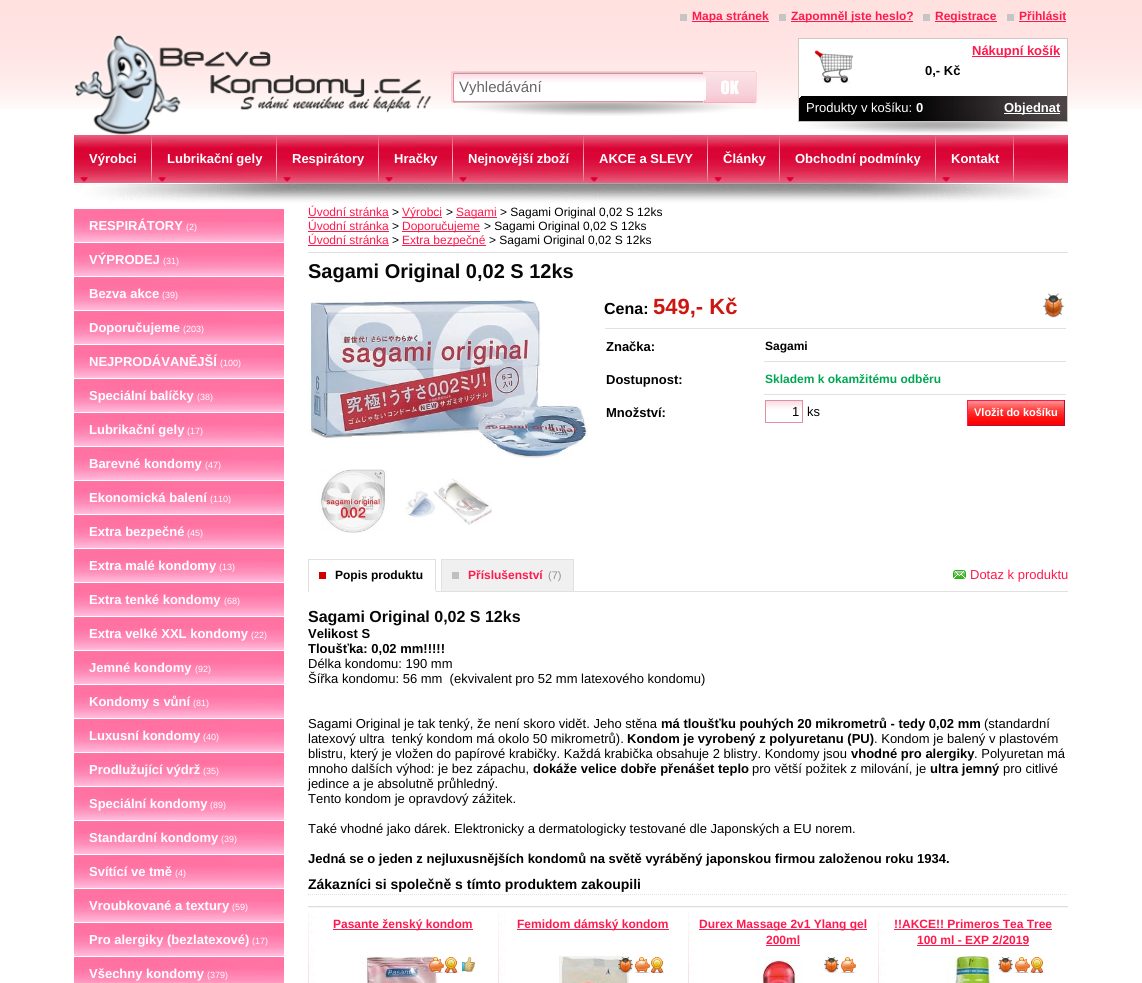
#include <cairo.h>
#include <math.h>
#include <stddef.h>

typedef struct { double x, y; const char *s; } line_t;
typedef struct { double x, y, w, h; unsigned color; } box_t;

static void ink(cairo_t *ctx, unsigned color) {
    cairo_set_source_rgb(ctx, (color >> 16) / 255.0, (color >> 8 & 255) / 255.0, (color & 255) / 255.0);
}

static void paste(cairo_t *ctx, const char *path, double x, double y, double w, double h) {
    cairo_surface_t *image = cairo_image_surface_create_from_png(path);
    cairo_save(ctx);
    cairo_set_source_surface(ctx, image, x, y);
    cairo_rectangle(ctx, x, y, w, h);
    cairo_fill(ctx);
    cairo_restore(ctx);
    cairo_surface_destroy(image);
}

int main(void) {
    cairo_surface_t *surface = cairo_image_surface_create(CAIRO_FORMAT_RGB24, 1142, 983);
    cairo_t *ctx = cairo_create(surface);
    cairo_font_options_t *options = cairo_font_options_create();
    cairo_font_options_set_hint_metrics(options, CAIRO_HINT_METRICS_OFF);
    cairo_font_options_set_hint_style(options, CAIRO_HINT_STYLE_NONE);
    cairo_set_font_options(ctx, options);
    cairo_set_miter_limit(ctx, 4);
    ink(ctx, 0xFFFFFF);
    cairo_paint(ctx);
    paste(ctx, "media/1.png", 0, 0, 1142, 109);
    paste(ctx, "media/2.png", 74, 35, 358, 100);
    ink(ctx, 0xFF1A4E);
    cairo_rectangle(ctx, 692, 21, 77, 1);
    cairo_fill(ctx);
    cairo_select_font_face(ctx, "Liberation Sans", CAIRO_FONT_SLANT_NORMAL, CAIRO_FONT_WEIGHT_BOLD);
    cairo_set_font_size(ctx, 12);
    cairo_move_to(ctx, 692, 20);
    cairo_show_text(ctx, "Mapa stránek");
    ink(ctx, 0xC5C5C5);
    cairo_rectangle(ctx, 680, 14, 7, 7);
    cairo_fill(ctx);
    ink(ctx, 0xFF1A4E);
    cairo_rectangle(ctx, 791, 21, 122, 1);
    cairo_fill(ctx);
    cairo_move_to(ctx, 791, 20);
    cairo_show_text(ctx, "Zapomněl jste heslo?");
    ink(ctx, 0xC5C5C5);
    cairo_rectangle(ctx, 779, 14, 7, 7);
    cairo_fill(ctx);
    ink(ctx, 0xFF1A4E);
    cairo_rectangle(ctx, 935, 21, 62, 1);
    cairo_fill(ctx);
    cairo_move_to(ctx, 935, 20);
    cairo_show_text(ctx, "Registrace");
    ink(ctx, 0xC5C5C5);
    cairo_rectangle(ctx, 923, 14, 7, 7);
    cairo_fill(ctx);
    ink(ctx, 0xFF1A4E);
    cairo_move_to(ctx, 1019, 20);
    cairo_show_text(ctx, "Přihlásit");
    ink(ctx, 0xC5C5C5);
    cairo_rectangle(ctx, 1007, 14, 7, 7);
    cairo_fill(ctx);
    ink(ctx, 0xFF1A4E);
    cairo_rectangle(ctx, 1019, 21, 47, 1);
    cairo_fill(ctx);
    paste(ctx, "media/3.png", 451, 71, 306, 45);
    ink(ctx, 0xFFFFFF);
    cairo_rectangle(ctx, 454, 82, 252, 18);
    cairo_fill(ctx);
    paste(ctx, "media/4.png", 454, 74, 252, 8);
    cairo_select_font_face(ctx, "Liberation Sans", CAIRO_FONT_SLANT_NORMAL, CAIRO_FONT_WEIGHT_NORMAL);
    cairo_set_font_size(ctx, 15);
    ink(ctx, 0x666666);
    cairo_move_to(ctx, 459, 92);
    cairo_show_text(ctx, "Vyhledávání");
    paste(ctx, "media/5.png", 798, 38, 270, 96);
    paste(ctx, "media/6.png", 814, 50, 39, 34);
    cairo_select_font_face(ctx, "Liberation Sans", CAIRO_FONT_SLANT_NORMAL, CAIRO_FONT_WEIGHT_BOLD);
    cairo_set_font_size(ctx, 13);
    ink(ctx, 0x000000);
    cairo_move_to(ctx, 925, 75);
    cairo_show_text(ctx, "0,- Kč");
    ink(ctx, 0xFF1A4E);
    cairo_rectangle(ctx, 972, 56, 88, 1);
    cairo_fill(ctx);
    cairo_move_to(ctx, 972, 55);
    cairo_show_text(ctx, "Nákupní košík");
    cairo_select_font_face(ctx, "Liberation Sans", CAIRO_FONT_SLANT_NORMAL, CAIRO_FONT_WEIGHT_NORMAL);
    ink(ctx, 0xFFFFFF);
    cairo_move_to(ctx, 806, 112);
    cairo_show_text(ctx, "Produkty v košíku:");
    cairo_select_font_face(ctx, "Liberation Sans", CAIRO_FONT_SLANT_NORMAL, CAIRO_FONT_WEIGHT_BOLD);
    cairo_move_to(ctx, 916, 112);
    cairo_show_text(ctx, "0");
    cairo_rectangle(ctx, 1004, 113, 56, 1);
    cairo_fill(ctx);
    cairo_move_to(ctx, 1004, 112);
    cairo_show_text(ctx, "Objednat");
    paste(ctx, "media/7.png", 74, 135, 994, 68);
    paste(ctx, "media/8.png", 74, 135, 15, 48);
    paste(ctx, "media/9.png", 89, 135, 63, 47);
    cairo_move_to(ctx, 89, 163);
    cairo_show_text(ctx, "Výrobci");
    paste(ctx, "media/8.png", 152, 135, 15, 48);
    paste(ctx, "media/10.png", 167, 135, 110, 47);
    cairo_move_to(ctx, 167, 163);
    cairo_show_text(ctx, "Lubrikační gely");
    paste(ctx, "media/11.png", 277, 135, 15, 47);
    paste(ctx, "media/12.png", 292, 135, 87, 47);
    cairo_move_to(ctx, 292, 163);
    cairo_show_text(ctx, "Respirátory");
    paste(ctx, "media/8.png", 379, 135, 15, 48);
    paste(ctx, "media/13.png", 394, 135, 59, 47);
    cairo_move_to(ctx, 394, 163);
    cairo_show_text(ctx, "Hračky");
    paste(ctx, "media/8.png", 453, 135, 15, 48);
    paste(ctx, "media/14.png", 468, 135, 116, 47);
    cairo_move_to(ctx, 468, 163);
    cairo_show_text(ctx, "Nejnovější zboží");
    paste(ctx, "media/11.png", 584, 135, 15, 47);
    paste(ctx, "media/15.png", 599, 135, 109, 47);
    cairo_move_to(ctx, 599, 163);
    cairo_show_text(ctx, "AKCE a SLEVY");
    paste(ctx, "media/11.png", 708, 135, 15, 47);
    paste(ctx, "media/16.png", 723, 135, 57, 47);
    cairo_move_to(ctx, 723, 163);
    cairo_show_text(ctx, "Články");
    paste(ctx, "media/11.png", 780, 135, 15, 47);
    paste(ctx, "media/17.png", 795, 135, 141, 47);
    cairo_move_to(ctx, 795, 163);
    cairo_show_text(ctx, "Obchodní podmínky");
    paste(ctx, "media/11.png", 936, 135, 15, 47);
    paste(ctx, "media/18.png", 951, 135, 63, 47);
    cairo_move_to(ctx, 951, 163);
    cairo_show_text(ctx, "Kontakt");
    paste(ctx, "media/19.png", 74, 209, 210, 33);
    cairo_move_to(ctx, 89, 230);
    cairo_show_text(ctx, "RESPIRÁTORY");
    cairo_select_font_face(ctx, "Liberation Sans", CAIRO_FONT_SLANT_NORMAL, CAIRO_FONT_WEIGHT_NORMAL);
    cairo_set_font_size(ctx, 9);
    cairo_move_to(ctx, 186, 230);
    cairo_show_text(ctx, "(2)");
    paste(ctx, "media/19.png", 74, 243, 210, 33);
    cairo_select_font_face(ctx, "Liberation Sans", CAIRO_FONT_SLANT_NORMAL, CAIRO_FONT_WEIGHT_BOLD);
    cairo_set_font_size(ctx, 13);
    cairo_move_to(ctx, 89, 264);
    cairo_show_text(ctx, "VÝPRODEJ");
    cairo_select_font_face(ctx, "Liberation Sans", CAIRO_FONT_SLANT_NORMAL, CAIRO_FONT_WEIGHT_NORMAL);
    cairo_set_font_size(ctx, 9);
    cairo_move_to(ctx, 163, 264);
    cairo_show_text(ctx, "(31)");
    paste(ctx, "media/19.png", 74, 277, 210, 33);
    cairo_select_font_face(ctx, "Liberation Sans", CAIRO_FONT_SLANT_NORMAL, CAIRO_FONT_WEIGHT_BOLD);
    cairo_set_font_size(ctx, 13);
    cairo_move_to(ctx, 89, 298);
    cairo_show_text(ctx, "Bezva akce");
    cairo_select_font_face(ctx, "Liberation Sans", CAIRO_FONT_SLANT_NORMAL, CAIRO_FONT_WEIGHT_NORMAL);
    cairo_set_font_size(ctx, 9);
    cairo_move_to(ctx, 162, 298);
    cairo_show_text(ctx, "(39)");
    paste(ctx, "media/19.png", 74, 311, 210, 33);
    cairo_select_font_face(ctx, "Liberation Sans", CAIRO_FONT_SLANT_NORMAL, CAIRO_FONT_WEIGHT_BOLD);
    cairo_set_font_size(ctx, 13);
    cairo_move_to(ctx, 89, 332);
    cairo_show_text(ctx, "Doporučujeme");
    cairo_select_font_face(ctx, "Liberation Sans", CAIRO_FONT_SLANT_NORMAL, CAIRO_FONT_WEIGHT_NORMAL);
    cairo_set_font_size(ctx, 9);
    cairo_move_to(ctx, 183, 332);
    cairo_show_text(ctx, "(203)");
    paste(ctx, "media/19.png", 74, 345, 210, 33);
    cairo_select_font_face(ctx, "Liberation Sans", CAIRO_FONT_SLANT_NORMAL, CAIRO_FONT_WEIGHT_BOLD);
    cairo_set_font_size(ctx, 13);
    cairo_move_to(ctx, 89, 366);
    cairo_show_text(ctx, "NEJPRODÁVANĚJŠÍ");
    cairo_select_font_face(ctx, "Liberation Sans", CAIRO_FONT_SLANT_NORMAL, CAIRO_FONT_WEIGHT_NORMAL);
    cairo_set_font_size(ctx, 9);
    cairo_move_to(ctx, 220, 366);
    cairo_show_text(ctx, "(100)");
    paste(ctx, "media/19.png", 74, 379, 210, 33);
    cairo_select_font_face(ctx, "Liberation Sans", CAIRO_FONT_SLANT_NORMAL, CAIRO_FONT_WEIGHT_BOLD);
    cairo_set_font_size(ctx, 13);
    cairo_move_to(ctx, 89, 400);
    cairo_show_text(ctx, "Speciální balíčky");
    cairo_select_font_face(ctx, "Liberation Sans", CAIRO_FONT_SLANT_NORMAL, CAIRO_FONT_WEIGHT_NORMAL);
    cairo_set_font_size(ctx, 9);
    cairo_move_to(ctx, 197, 400);
    cairo_show_text(ctx, "(38)");
    paste(ctx, "media/19.png", 74, 413, 210, 33);
    cairo_select_font_face(ctx, "Liberation Sans", CAIRO_FONT_SLANT_NORMAL, CAIRO_FONT_WEIGHT_BOLD);
    cairo_set_font_size(ctx, 13);
    cairo_move_to(ctx, 89, 434);
    cairo_show_text(ctx, "Lubrikační gely");
    cairo_select_font_face(ctx, "Liberation Sans", CAIRO_FONT_SLANT_NORMAL, CAIRO_FONT_WEIGHT_NORMAL);
    cairo_set_font_size(ctx, 9);
    cairo_move_to(ctx, 187, 434);
    cairo_show_text(ctx, "(17)");
    paste(ctx, "media/19.png", 74, 447, 210, 33);
    cairo_select_font_face(ctx, "Liberation Sans", CAIRO_FONT_SLANT_NORMAL, CAIRO_FONT_WEIGHT_BOLD);
    cairo_set_font_size(ctx, 13);
    cairo_move_to(ctx, 89, 468);
    cairo_show_text(ctx, "Barevné kondomy");
    cairo_select_font_face(ctx, "Liberation Sans", CAIRO_FONT_SLANT_NORMAL, CAIRO_FONT_WEIGHT_NORMAL);
    cairo_set_font_size(ctx, 9);
    cairo_move_to(ctx, 205, 468);
    cairo_show_text(ctx, "(47)");
    paste(ctx, "media/19.png", 74, 481, 210, 33);
    cairo_select_font_face(ctx, "Liberation Sans", CAIRO_FONT_SLANT_NORMAL, CAIRO_FONT_WEIGHT_BOLD);
    cairo_set_font_size(ctx, 13);
    cairo_move_to(ctx, 89, 502);
    cairo_show_text(ctx, "Ekonomická balení");
    cairo_select_font_face(ctx, "Liberation Sans", CAIRO_FONT_SLANT_NORMAL, CAIRO_FONT_WEIGHT_NORMAL);
    cairo_set_font_size(ctx, 9);
    cairo_move_to(ctx, 210, 502);
    cairo_show_text(ctx, "(110)");
    paste(ctx, "media/19.png", 74, 515, 210, 33);
    cairo_select_font_face(ctx, "Liberation Sans", CAIRO_FONT_SLANT_NORMAL, CAIRO_FONT_WEIGHT_BOLD);
    cairo_set_font_size(ctx, 13);
    cairo_move_to(ctx, 89, 536);
    cairo_show_text(ctx, "Extra bezpečné");
    cairo_select_font_face(ctx, "Liberation Sans", CAIRO_FONT_SLANT_NORMAL, CAIRO_FONT_WEIGHT_NORMAL);
    cairo_set_font_size(ctx, 9);
    cairo_move_to(ctx, 187, 536);
    cairo_show_text(ctx, "(45)");
    paste(ctx, "media/19.png", 74, 549, 210, 33);
    cairo_select_font_face(ctx, "Liberation Sans", CAIRO_FONT_SLANT_NORMAL, CAIRO_FONT_WEIGHT_BOLD);
    cairo_set_font_size(ctx, 13);
    cairo_move_to(ctx, 89, 570);
    cairo_show_text(ctx, "Extra malé kondomy");
    cairo_select_font_face(ctx, "Liberation Sans", CAIRO_FONT_SLANT_NORMAL, CAIRO_FONT_WEIGHT_NORMAL);
    cairo_set_font_size(ctx, 9);
    cairo_move_to(ctx, 219, 570);
    cairo_show_text(ctx, "(13)");
    paste(ctx, "media/19.png", 74, 583, 210, 33);
    cairo_select_font_face(ctx, "Liberation Sans", CAIRO_FONT_SLANT_NORMAL, CAIRO_FONT_WEIGHT_BOLD);
    cairo_set_font_size(ctx, 13);
    cairo_move_to(ctx, 89, 604);
    cairo_show_text(ctx, "Extra tenké kondomy");
    cairo_select_font_face(ctx, "Liberation Sans", CAIRO_FONT_SLANT_NORMAL, CAIRO_FONT_WEIGHT_NORMAL);
    cairo_set_font_size(ctx, 9);
    cairo_move_to(ctx, 224, 604);
    cairo_show_text(ctx, "(68)");
    paste(ctx, "media/19.png", 74, 617, 210, 33);
    cairo_select_font_face(ctx, "Liberation Sans", CAIRO_FONT_SLANT_NORMAL, CAIRO_FONT_WEIGHT_BOLD);
    cairo_set_font_size(ctx, 13);
    cairo_move_to(ctx, 89, 638);
    cairo_show_text(ctx, "Extra velké XXL kondomy");
    cairo_select_font_face(ctx, "Liberation Sans", CAIRO_FONT_SLANT_NORMAL, CAIRO_FONT_WEIGHT_NORMAL);
    cairo_set_font_size(ctx, 9);
    cairo_move_to(ctx, 251, 638);
    cairo_show_text(ctx, "(22)");
    paste(ctx, "media/19.png", 74, 651, 210, 33);
    cairo_select_font_face(ctx, "Liberation Sans", CAIRO_FONT_SLANT_NORMAL, CAIRO_FONT_WEIGHT_BOLD);
    cairo_set_font_size(ctx, 13);
    cairo_move_to(ctx, 89, 672);
    cairo_show_text(ctx, "Jemné kondomy");
    cairo_select_font_face(ctx, "Liberation Sans", CAIRO_FONT_SLANT_NORMAL, CAIRO_FONT_WEIGHT_NORMAL);
    cairo_set_font_size(ctx, 9);
    cairo_move_to(ctx, 195, 672);
    cairo_show_text(ctx, "(92)");
    paste(ctx, "media/19.png", 74, 685, 210, 33);
    cairo_select_font_face(ctx, "Liberation Sans", CAIRO_FONT_SLANT_NORMAL, CAIRO_FONT_WEIGHT_BOLD);
    cairo_set_font_size(ctx, 13);
    cairo_move_to(ctx, 89, 706);
    cairo_show_text(ctx, "Kondomy s vůní");
    cairo_select_font_face(ctx, "Liberation Sans", CAIRO_FONT_SLANT_NORMAL, CAIRO_FONT_WEIGHT_NORMAL);
    cairo_set_font_size(ctx, 9);
    cairo_move_to(ctx, 193, 706);
    cairo_show_text(ctx, "(81)");
    paste(ctx, "media/19.png", 74, 719, 210, 33);
    cairo_select_font_face(ctx, "Liberation Sans", CAIRO_FONT_SLANT_NORMAL, CAIRO_FONT_WEIGHT_BOLD);
    cairo_set_font_size(ctx, 13);
    cairo_move_to(ctx, 89, 740);
    cairo_show_text(ctx, "Luxusní kondomy");
    cairo_select_font_face(ctx, "Liberation Sans", CAIRO_FONT_SLANT_NORMAL, CAIRO_FONT_WEIGHT_NORMAL);
    cairo_set_font_size(ctx, 9);
    cairo_move_to(ctx, 203, 740);
    cairo_show_text(ctx, "(40)");
    paste(ctx, "media/19.png", 74, 753, 210, 33);
    cairo_select_font_face(ctx, "Liberation Sans", CAIRO_FONT_SLANT_NORMAL, CAIRO_FONT_WEIGHT_BOLD);
    cairo_set_font_size(ctx, 13);
    cairo_move_to(ctx, 89, 774);
    cairo_show_text(ctx, "Prodlužující výdrž");
    cairo_select_font_face(ctx, "Liberation Sans", CAIRO_FONT_SLANT_NORMAL, CAIRO_FONT_WEIGHT_NORMAL);
    cairo_set_font_size(ctx, 9);
    cairo_move_to(ctx, 203, 774);
    cairo_show_text(ctx, "(35)");
    paste(ctx, "media/19.png", 74, 787, 210, 33);
    cairo_select_font_face(ctx, "Liberation Sans", CAIRO_FONT_SLANT_NORMAL, CAIRO_FONT_WEIGHT_BOLD);
    cairo_set_font_size(ctx, 13);
    cairo_move_to(ctx, 89, 808);
    cairo_show_text(ctx, "Speciální kondomy");
    cairo_select_font_face(ctx, "Liberation Sans", CAIRO_FONT_SLANT_NORMAL, CAIRO_FONT_WEIGHT_NORMAL);
    cairo_set_font_size(ctx, 9);
    cairo_move_to(ctx, 210, 808);
    cairo_show_text(ctx, "(89)");
    paste(ctx, "media/19.png", 74, 821, 210, 33);
    cairo_select_font_face(ctx, "Liberation Sans", CAIRO_FONT_SLANT_NORMAL, CAIRO_FONT_WEIGHT_BOLD);
    cairo_set_font_size(ctx, 13);
    cairo_move_to(ctx, 89, 842);
    cairo_show_text(ctx, "Standardní kondomy");
    cairo_select_font_face(ctx, "Liberation Sans", CAIRO_FONT_SLANT_NORMAL, CAIRO_FONT_WEIGHT_NORMAL);
    cairo_set_font_size(ctx, 9);
    cairo_move_to(ctx, 221, 842);
    cairo_show_text(ctx, "(39)");
    paste(ctx, "media/19.png", 74, 855, 210, 33);
    cairo_select_font_face(ctx, "Liberation Sans", CAIRO_FONT_SLANT_NORMAL, CAIRO_FONT_WEIGHT_BOLD);
    cairo_set_font_size(ctx, 13);
    cairo_move_to(ctx, 89, 876);
    cairo_show_text(ctx, "Svítící ve tmě");
    cairo_select_font_face(ctx, "Liberation Sans", CAIRO_FONT_SLANT_NORMAL, CAIRO_FONT_WEIGHT_NORMAL);
    cairo_set_font_size(ctx, 9);
    cairo_move_to(ctx, 175, 876);
    cairo_show_text(ctx, "(4)");
    paste(ctx, "media/19.png", 74, 889, 210, 33);
    cairo_select_font_face(ctx, "Liberation Sans", CAIRO_FONT_SLANT_NORMAL, CAIRO_FONT_WEIGHT_BOLD);
    cairo_set_font_size(ctx, 13);
    cairo_move_to(ctx, 89, 910);
    cairo_show_text(ctx, "Vroubkované a textury");
    cairo_select_font_face(ctx, "Liberation Sans", CAIRO_FONT_SLANT_NORMAL, CAIRO_FONT_WEIGHT_NORMAL);
    cairo_set_font_size(ctx, 9);
    cairo_move_to(ctx, 232, 910);
    cairo_show_text(ctx, "(59)");
    paste(ctx, "media/19.png", 74, 923, 210, 33);
    cairo_select_font_face(ctx, "Liberation Sans", CAIRO_FONT_SLANT_NORMAL, CAIRO_FONT_WEIGHT_BOLD);
    cairo_set_font_size(ctx, 13);
    cairo_move_to(ctx, 89, 944);
    cairo_show_text(ctx, "Pro alergiky (bezlatexové)");
    cairo_select_font_face(ctx, "Liberation Sans", CAIRO_FONT_SLANT_NORMAL, CAIRO_FONT_WEIGHT_NORMAL);
    cairo_set_font_size(ctx, 9);
    cairo_move_to(ctx, 252, 944);
    cairo_show_text(ctx, "(17)");
    paste(ctx, "media/20.png", 74, 957, 210, 26);
    cairo_select_font_face(ctx, "Liberation Sans", CAIRO_FONT_SLANT_NORMAL, CAIRO_FONT_WEIGHT_BOLD);
    cairo_set_font_size(ctx, 13);
    cairo_move_to(ctx, 89, 978);
    cairo_show_text(ctx, "Všechny kondomy");
    cairo_select_font_face(ctx, "Liberation Sans", CAIRO_FONT_SLANT_NORMAL, CAIRO_FONT_WEIGHT_NORMAL);
    cairo_set_font_size(ctx, 9);
    cairo_move_to(ctx, 207, 978);
    cairo_show_text(ctx, "(379)");
    cairo_set_font_size(ctx, 12);
    ink(ctx, 0xFF1A4E);
    cairo_move_to(ctx, 308, 216);
    cairo_show_text(ctx, "Úvodní stránka");
    cairo_rectangle(ctx, 308, 217, 81, 1);
    cairo_fill(ctx);
    ink(ctx, 0x000000);
    cairo_move_to(ctx, 392, 216);
    cairo_show_text(ctx, ">");
    ink(ctx, 0xFF1A4E);
    cairo_rectangle(ctx, 402, 217, 40, 1);
    cairo_fill(ctx);
    cairo_move_to(ctx, 402, 216);
    cairo_show_text(ctx, "Výrobci");
    ink(ctx, 0x000000);
    cairo_move_to(ctx, 446, 216);
    cairo_show_text(ctx, ">");
    ink(ctx, 0xFF1A4E);
    cairo_rectangle(ctx, 456, 217, 41, 1);
    cairo_fill(ctx);
    cairo_move_to(ctx, 456, 216);
    cairo_show_text(ctx, "Sagami");
    ink(ctx, 0x000000);
    cairo_move_to(ctx, 500, 216);
    cairo_show_text(ctx, "> Sagami Original 0,02 S 12ks");
    ink(ctx, 0xFF1A4E);
    cairo_move_to(ctx, 308, 230);
    cairo_show_text(ctx, "Úvodní stránka");
    cairo_rectangle(ctx, 308, 231, 81, 1);
    cairo_fill(ctx);
    ink(ctx, 0x000000);
    cairo_move_to(ctx, 392, 230);
    cairo_show_text(ctx, ">");
    ink(ctx, 0xFF1A4E);
    cairo_rectangle(ctx, 402, 231, 78, 1);
    cairo_fill(ctx);
    cairo_move_to(ctx, 402, 230);
    cairo_show_text(ctx, "Doporučujeme");
    ink(ctx, 0x000000);
    cairo_move_to(ctx, 484, 230);
    cairo_show_text(ctx, "> Sagami Original 0,02 S 12ks");
    ink(ctx, 0xFF1A4E);
    cairo_move_to(ctx, 308, 244);
    cairo_show_text(ctx, "Úvodní stránka");
    cairo_rectangle(ctx, 308, 245, 81, 1);
    cairo_fill(ctx);
    ink(ctx, 0x000000);
    cairo_move_to(ctx, 392, 244);
    cairo_show_text(ctx, ">");
    ink(ctx, 0xFF1A4E);
    cairo_rectangle(ctx, 402, 245, 84, 1);
    cairo_fill(ctx);
    cairo_move_to(ctx, 402, 244);
    cairo_show_text(ctx, "Extra bezpečné");
    ink(ctx, 0x000000);
    cairo_move_to(ctx, 489, 244);
    cairo_show_text(ctx, "> Sagami Original 0,02 S 12ks");
    ink(ctx, 0xE1E1E1);
    cairo_rectangle(ctx, 308, 252, 760, 1);
    cairo_fill(ctx);
    cairo_select_font_face(ctx, "Liberation Sans", CAIRO_FONT_SLANT_NORMAL, CAIRO_FONT_WEIGHT_BOLD);
    cairo_set_font_size(ctx, 20);
    ink(ctx, 0x070707);
    cairo_move_to(ctx, 308, 278);
    cairo_show_text(ctx, "Sagami Original 0,02 S 12ks");
    paste(ctx, "media/21.png", 309, 299, 279, 160);
    paste(ctx, "media/22.png", 318, 469, 69, 64);
    paste(ctx, "media/23.png", 405, 478, 87, 47);
    ink(ctx, 0xE1E1E1);
    cairo_rectangle(ctx, 605, 328, 461, 1);
    cairo_fill(ctx);
    cairo_set_font_size(ctx, 16);
    ink(ctx, 0x000000);
    cairo_move_to(ctx, 604, 314);
    cairo_show_text(ctx, "Cena:");
    cairo_set_font_size(ctx, 22);
    ink(ctx, 0xCD160F);
    cairo_move_to(ctx, 653, 314);
    cairo_show_text(ctx, "549,- Kč");
    paste(ctx, "media/24.png", 1042, 292, 23, 26);
    cairo_set_font_size(ctx, 13);
    ink(ctx, 0x000000);
    cairo_move_to(ctx, 606, 351);
    cairo_show_text(ctx, "Značka:");
    ink(ctx, 0xE1E1E1);
    cairo_rectangle(ctx, 764, 361, 302, 1);
    cairo_fill(ctx);
    cairo_set_font_size(ctx, 12);
    ink(ctx, 0x000000);
    cairo_move_to(ctx, 765, 350);
    cairo_show_text(ctx, "Sagami");
    cairo_set_font_size(ctx, 13);
    cairo_move_to(ctx, 606, 384);
    cairo_show_text(ctx, "Dostupnost:");
    ink(ctx, 0xE1E1E1);
    cairo_rectangle(ctx, 764, 394, 302, 1);
    cairo_fill(ctx);
    cairo_set_font_size(ctx, 12);
    ink(ctx, 0x00A653);
    cairo_move_to(ctx, 765, 383);
    cairo_show_text(ctx, "Skladem k okamžitému odběru");
    cairo_set_font_size(ctx, 13);
    ink(ctx, 0x000000);
    cairo_move_to(ctx, 606, 417);
    cairo_show_text(ctx, "Množství:");
    paste(ctx, "media/25.png", 766, 401, 36, 8);
    cairo_rectangle(ctx, 765.5, 400.5, 37, 22);
    ink(ctx, 0xDD92A1);
    cairo_set_line_width(ctx, 1);
    cairo_stroke(ctx);
    cairo_select_font_face(ctx, "Liberation Sans", CAIRO_FONT_SLANT_NORMAL, CAIRO_FONT_WEIGHT_NORMAL);
    ink(ctx, 0x000000);
    cairo_move_to(ctx, 792, 416);
    cairo_show_text(ctx, "1");
    cairo_move_to(ctx, 807, 416);
    cairo_show_text(ctx, "ks");
    paste(ctx, "media/26.png", 968, 401, 96, 24);
    {
        static const box_t items[] = {
            {967, 400, 98, 1, 0xFF1A4E},
            {1064, 400, 1, 26, 0xAA1134},
            {967, 425, 98, 1, 0xAA1134},
            {967, 400, 1, 26, 0xFF1A4E},
        };
        for (size_t i = 0; i < sizeof items / sizeof *items; i++) {
            ink(ctx, items[i].color);
            cairo_rectangle(ctx, items[i].x, items[i].y, items[i].w, items[i].h);
            cairo_fill(ctx);
        }
    }
    cairo_select_font_face(ctx, "Liberation Sans", CAIRO_FONT_SLANT_NORMAL, CAIRO_FONT_WEIGHT_BOLD);
    cairo_set_font_size(ctx, 11);
    ink(ctx, 0xFFFFFF);
    cairo_move_to(ctx, 974, 416);
    cairo_show_text(ctx, "Vložit do košíku");
    {
        static const box_t items[] = {
            {436, 591, 632, 1, 0xE1E1E1},
            {308, 559, 128, 1, 0xE1E1E1},
            {435, 559, 1, 33, 0xE1E1E1},
            {435, 591, 1, 1, 0xFFFFFF},
            {308, 559, 1, 33, 0xE1E1E1},
            {319, 572, 7, 7, 0xCC0000},
        };
        for (size_t i = 0; i < sizeof items / sizeof *items; i++) {
            ink(ctx, items[i].color);
            cairo_rectangle(ctx, items[i].x, items[i].y, items[i].w, items[i].h);
            cairo_fill(ctx);
        }
    }
    cairo_set_font_size(ctx, 12);
    ink(ctx, 0x000000);
    cairo_move_to(ctx, 335, 579);
    cairo_show_text(ctx, "Popis produktu");
    ink(ctx, 0xF0F0F0);
    cairo_rectangle(ctx, 441.5, 559.5, 132, 32);
    cairo_fill_preserve(ctx);
    ink(ctx, 0xE1E1E1);
    cairo_stroke(ctx);
    ink(ctx, 0xC0C0C0);
    cairo_rectangle(ctx, 452, 572, 7, 7);
    cairo_fill(ctx);
    ink(ctx, 0xFF1A4E);
    cairo_move_to(ctx, 468, 579);
    cairo_show_text(ctx, "Příslušenství");
    cairo_select_font_face(ctx, "Liberation Sans", CAIRO_FONT_SLANT_NORMAL, CAIRO_FONT_WEIGHT_NORMAL);
    cairo_set_font_size(ctx, 11);
    ink(ctx, 0x919191);
    cairo_move_to(ctx, 548, 579);
    cairo_show_text(ctx, "(7)");
    paste(ctx, "media/27.png", 953, 570, 13, 9);
    cairo_set_font_size(ctx, 13);
    ink(ctx, 0xFF1A4E);
    cairo_move_to(ctx, 970, 579);
    cairo_show_text(ctx, "Dotaz k produktu");
    cairo_select_font_face(ctx, "Liberation Sans", CAIRO_FONT_SLANT_NORMAL, CAIRO_FONT_WEIGHT_BOLD);
    cairo_set_font_size(ctx, 16);
    ink(ctx, 0x070707);
    cairo_move_to(ctx, 308, 622);
    cairo_show_text(ctx, "Sagami Original 0,02 S 12ks");
    cairo_set_font_size(ctx, 13);
    ink(ctx, 0x000000);
    cairo_move_to(ctx, 308, 638);
    cairo_show_text(ctx, "Velikost S");
    cairo_move_to(ctx, 308, 653);
    cairo_show_text(ctx, "Tloušťka: 0,02 mm!!!!!");
    cairo_select_font_face(ctx, "Liberation Sans", CAIRO_FONT_SLANT_NORMAL, CAIRO_FONT_WEIGHT_NORMAL);
    {
        static const line_t items[] = {
            {308, 668, "Délka kondomu: 190 mm"},
            {308, 683, "Šířka kondomu: 56 mm  (ekvivalent pro 52 mm latexového kondomu)"},
            {308, 728, "Sagami Original je tak tenký, že není skoro vidět. Jeho stěna"},
        };
        for (size_t i = 0; i < sizeof items / sizeof *items; i++) {
            cairo_move_to(ctx, items[i].x, items[i].y);
            cairo_show_text(ctx, items[i].s);
        }
    }
    cairo_select_font_face(ctx, "Liberation Sans", CAIRO_FONT_SLANT_NORMAL, CAIRO_FONT_WEIGHT_BOLD);
    cairo_move_to(ctx, 661, 728);
    cairo_show_text(ctx, "má tloušťku pouhých 20 mikrometrů - tedy 0,02 mm");
    cairo_select_font_face(ctx, "Liberation Sans", CAIRO_FONT_SLANT_NORMAL, CAIRO_FONT_WEIGHT_NORMAL);
    cairo_move_to(ctx, 984, 728);
    cairo_show_text(ctx, "(standardní");
    cairo_move_to(ctx, 308, 743);
    cairo_show_text(ctx, "latexový ultra  tenký kondom má okolo 50 mikrometrů).");
    cairo_select_font_face(ctx, "Liberation Sans", CAIRO_FONT_SLANT_NORMAL, CAIRO_FONT_WEIGHT_BOLD);
    cairo_move_to(ctx, 627, 743);
    cairo_show_text(ctx, "Kondom je vyrobený z polyuretanu (PU)");
    cairo_select_font_face(ctx, "Liberation Sans", CAIRO_FONT_SLANT_NORMAL, CAIRO_FONT_WEIGHT_NORMAL);
    cairo_move_to(ctx, 874, 743);
    cairo_show_text(ctx, ". Kondom je balený v plastovém");
    cairo_move_to(ctx, 308, 758);
    cairo_show_text(ctx, "blistru, který je vložen do papírové krabičky. Každá krabička obsahuje 2 blistry. Kondomy jsou");
    cairo_select_font_face(ctx, "Liberation Sans", CAIRO_FONT_SLANT_NORMAL, CAIRO_FONT_WEIGHT_BOLD);
    cairo_move_to(ctx, 851, 758);
    cairo_show_text(ctx, "vhodné pro alergiky");
    cairo_select_font_face(ctx, "Liberation Sans", CAIRO_FONT_SLANT_NORMAL, CAIRO_FONT_WEIGHT_NORMAL);
    cairo_move_to(ctx, 974, 758);
    cairo_show_text(ctx, ". Polyuretan má");
    cairo_move_to(ctx, 308, 773);
    cairo_show_text(ctx, "mnoho dalších výhod: je bez zápachu,");
    cairo_select_font_face(ctx, "Liberation Sans", CAIRO_FONT_SLANT_NORMAL, CAIRO_FONT_WEIGHT_BOLD);
    cairo_move_to(ctx, 533, 773);
    cairo_show_text(ctx, "dokáže velice dobře přenášet teplo");
    cairo_select_font_face(ctx, "Liberation Sans", CAIRO_FONT_SLANT_NORMAL, CAIRO_FONT_WEIGHT_NORMAL);
    cairo_move_to(ctx, 752, 773);
    cairo_show_text(ctx, "pro větší požitek z milování, je");
    cairo_select_font_face(ctx, "Liberation Sans", CAIRO_FONT_SLANT_NORMAL, CAIRO_FONT_WEIGHT_BOLD);
    cairo_move_to(ctx, 930, 773);
    cairo_show_text(ctx, "ultra jemný");
    cairo_select_font_face(ctx, "Liberation Sans", CAIRO_FONT_SLANT_NORMAL, CAIRO_FONT_WEIGHT_NORMAL);
    {
        static const line_t items[] = {
            {1003, 773, "pro citlivé"},
            {308, 788, "jedince a je absolutně průhledný."},
            {308, 803, "Tento kondom je opravdový zážitek."},
            {308, 833, "Také vhodné jako dárek. Elektronicky a dermatologicky testované dle Japonských a EU norem."},
        };
        for (size_t i = 0; i < sizeof items / sizeof *items; i++) {
            cairo_move_to(ctx, items[i].x, items[i].y);
            cairo_show_text(ctx, items[i].s);
        }
    }
    cairo_select_font_face(ctx, "Liberation Sans", CAIRO_FONT_SLANT_NORMAL, CAIRO_FONT_WEIGHT_BOLD);
    cairo_move_to(ctx, 308, 863);
    cairo_show_text(ctx, "Jedná se o jeden z nejluxusnějších kondomů na světě vyráběný japonskou firmou založenou roku 1934.");
    cairo_new_path(ctx);
    cairo_move_to(ctx, 308, 894.5);
    cairo_line_to(ctx, 1068, 894.5);
    ink(ctx, 0xE1E1E1);
    cairo_set_dash(ctx, (double[]){1, 1}, 2, 0);
    cairo_stroke(ctx);
    cairo_set_font_size(ctx, 14);
    ink(ctx, 0x000000);
    cairo_move_to(ctx, 308, 889);
    cairo_show_text(ctx, "Zákazníci si společně s tímto produktem zakoupili");
    paste(ctx, "media/28.png", 308, 906, 190, 77);
    ink(ctx, 0xFF1A4E);
    cairo_rectangle(ctx, 333, 929, 140, 1);
    cairo_fill(ctx);
    cairo_set_font_size(ctx, 12);
    cairo_move_to(ctx, 333, 928);
    cairo_show_text(ctx, "Pasante ženský kondom");
    paste(ctx, "media/29.png", 360, 956, 80, 27);
    paste(ctx, "media/30.png", 428, 957, 16, 16);
    paste(ctx, "media/31.png", 444, 957, 15, 16);
    paste(ctx, "media/32.png", 462, 957, 13, 15);
    paste(ctx, "media/28.png", 498, 906, 190, 77);
    cairo_rectangle(ctx, 517, 929, 152, 1);
    cairo_fill(ctx);
    cairo_move_to(ctx, 517, 928);
    cairo_show_text(ctx, "Femidom dámský kondom");
    paste(ctx, "media/33.png", 559, 956, 71, 27);
    paste(ctx, "media/34.png", 618, 957, 15, 16);
    paste(ctx, "media/35.png", 634, 957, 16, 16);
    paste(ctx, "media/31.png", 650, 957, 15, 16);
    paste(ctx, "media/28.png", 688, 906, 190, 77);
    cairo_rectangle(ctx, 699, 929, 168, 1);
    cairo_fill(ctx);
    cairo_move_to(ctx, 699, 928);
    cairo_show_text(ctx, "Durex Massage 2v1 Ylang gel");
    cairo_move_to(ctx, 766, 944);
    cairo_show_text(ctx, "200ml");
    cairo_rectangle(ctx, 766, 945, 34, 1);
    cairo_fill(ctx);
    paste(ctx, "media/36.png", 756, 956, 48, 27);
    paste(ctx, "media/37.png", 824, 957, 15, 16);
    paste(ctx, "media/35.png", 840, 957, 16, 16);
    paste(ctx, "media/28.png", 878, 906, 190, 77);
    cairo_move_to(ctx, 894, 928);
    cairo_show_text(ctx, "!!AKCE!! Primeros Tea Tree");
    cairo_rectangle(ctx, 894, 929, 158, 1);
    cairo_fill(ctx);
    cairo_move_to(ctx, 917, 944);
    cairo_show_text(ctx, "100 ml - EXP 2/2019");
    cairo_rectangle(ctx, 917, 945, 112, 1);
    cairo_fill(ctx);
    paste(ctx, "media/38.png", 946, 956, 48, 27);
    paste(ctx, "media/37.png", 998, 957, 15, 16);
    paste(ctx, "media/35.png", 1014, 957, 16, 16);
    paste(ctx, "media/31.png", 1030, 957, 15, 16);
    cairo_surface_write_to_png(surface, "image.png");
    cairo_font_options_destroy(options);
    cairo_destroy(ctx);
    cairo_surface_destroy(surface);
    return 0;
}
